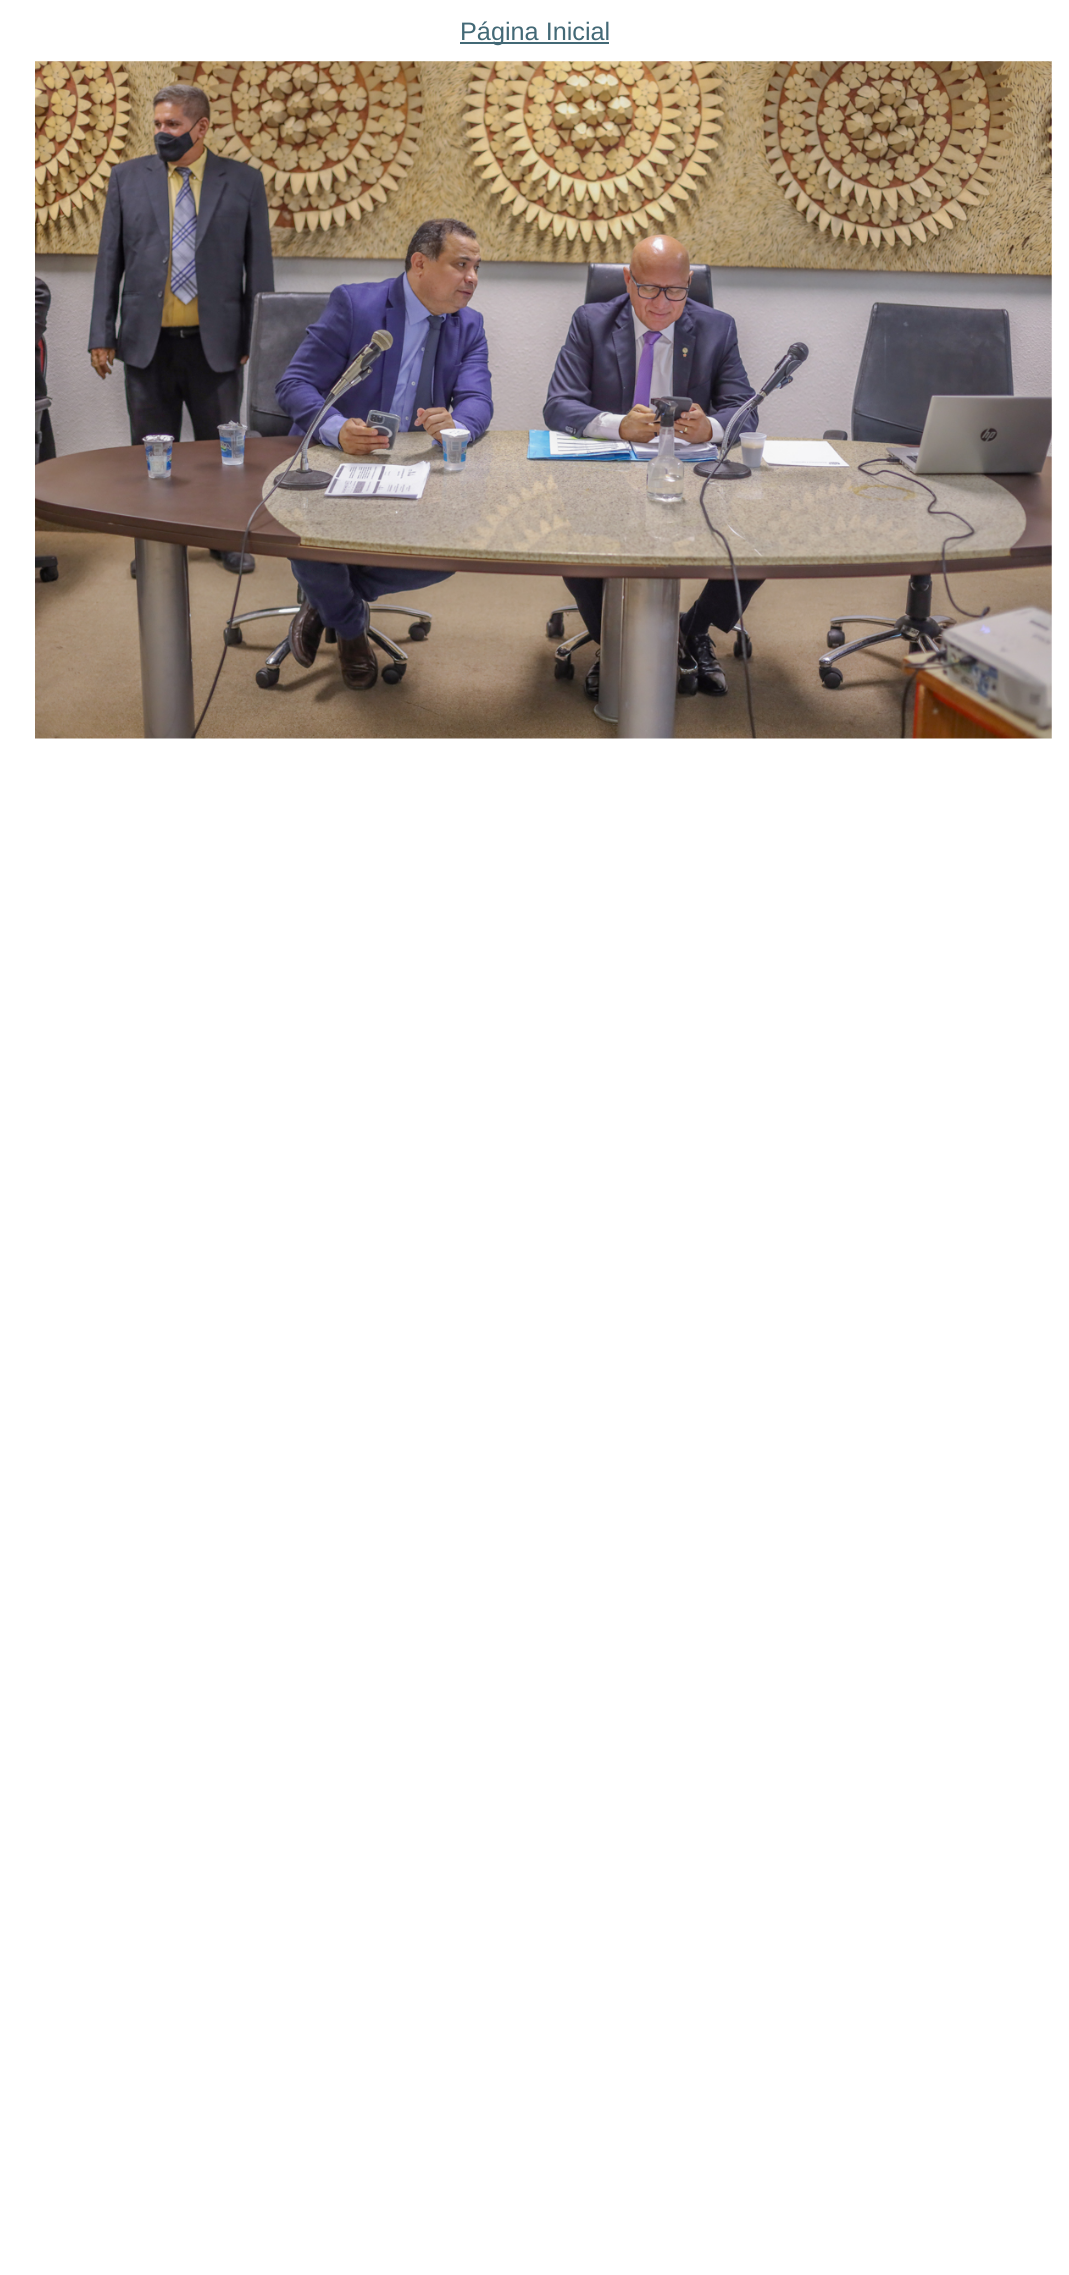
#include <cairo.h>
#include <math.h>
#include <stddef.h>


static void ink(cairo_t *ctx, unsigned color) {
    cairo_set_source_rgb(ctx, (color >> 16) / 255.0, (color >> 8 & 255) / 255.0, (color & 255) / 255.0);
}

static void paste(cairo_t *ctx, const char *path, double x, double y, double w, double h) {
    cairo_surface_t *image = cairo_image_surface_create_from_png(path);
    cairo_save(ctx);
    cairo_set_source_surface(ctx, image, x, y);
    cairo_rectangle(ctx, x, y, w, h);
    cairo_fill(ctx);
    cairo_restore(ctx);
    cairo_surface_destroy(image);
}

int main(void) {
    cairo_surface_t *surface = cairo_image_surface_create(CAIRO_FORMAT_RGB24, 1069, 2275);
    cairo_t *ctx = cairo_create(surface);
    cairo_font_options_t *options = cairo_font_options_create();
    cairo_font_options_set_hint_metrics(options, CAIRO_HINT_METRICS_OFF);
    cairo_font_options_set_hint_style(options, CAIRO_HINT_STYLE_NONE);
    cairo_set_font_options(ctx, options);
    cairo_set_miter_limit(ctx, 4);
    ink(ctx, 0xFFFFFF);
    cairo_paint(ctx);
    ink(ctx, 0x436976);
    cairo_rectangle(ctx, 460, 42, 149, 2);
    cairo_fill(ctx);
    cairo_select_font_face(ctx, "Liberation Sans", CAIRO_FONT_SLANT_NORMAL, CAIRO_FONT_WEIGHT_NORMAL);
    cairo_set_font_size(ctx, 25.25);
    cairo_move_to(ctx, 460, 40);
    cairo_show_text(ctx, "Página Inicial");
    paste(ctx, "media/1.png", 35, 61, 1017, 678);
    cairo_surface_write_to_png(surface, "image.png");
    cairo_font_options_destroy(options);
    cairo_destroy(ctx);
    cairo_surface_destroy(surface);
    return 0;
}
